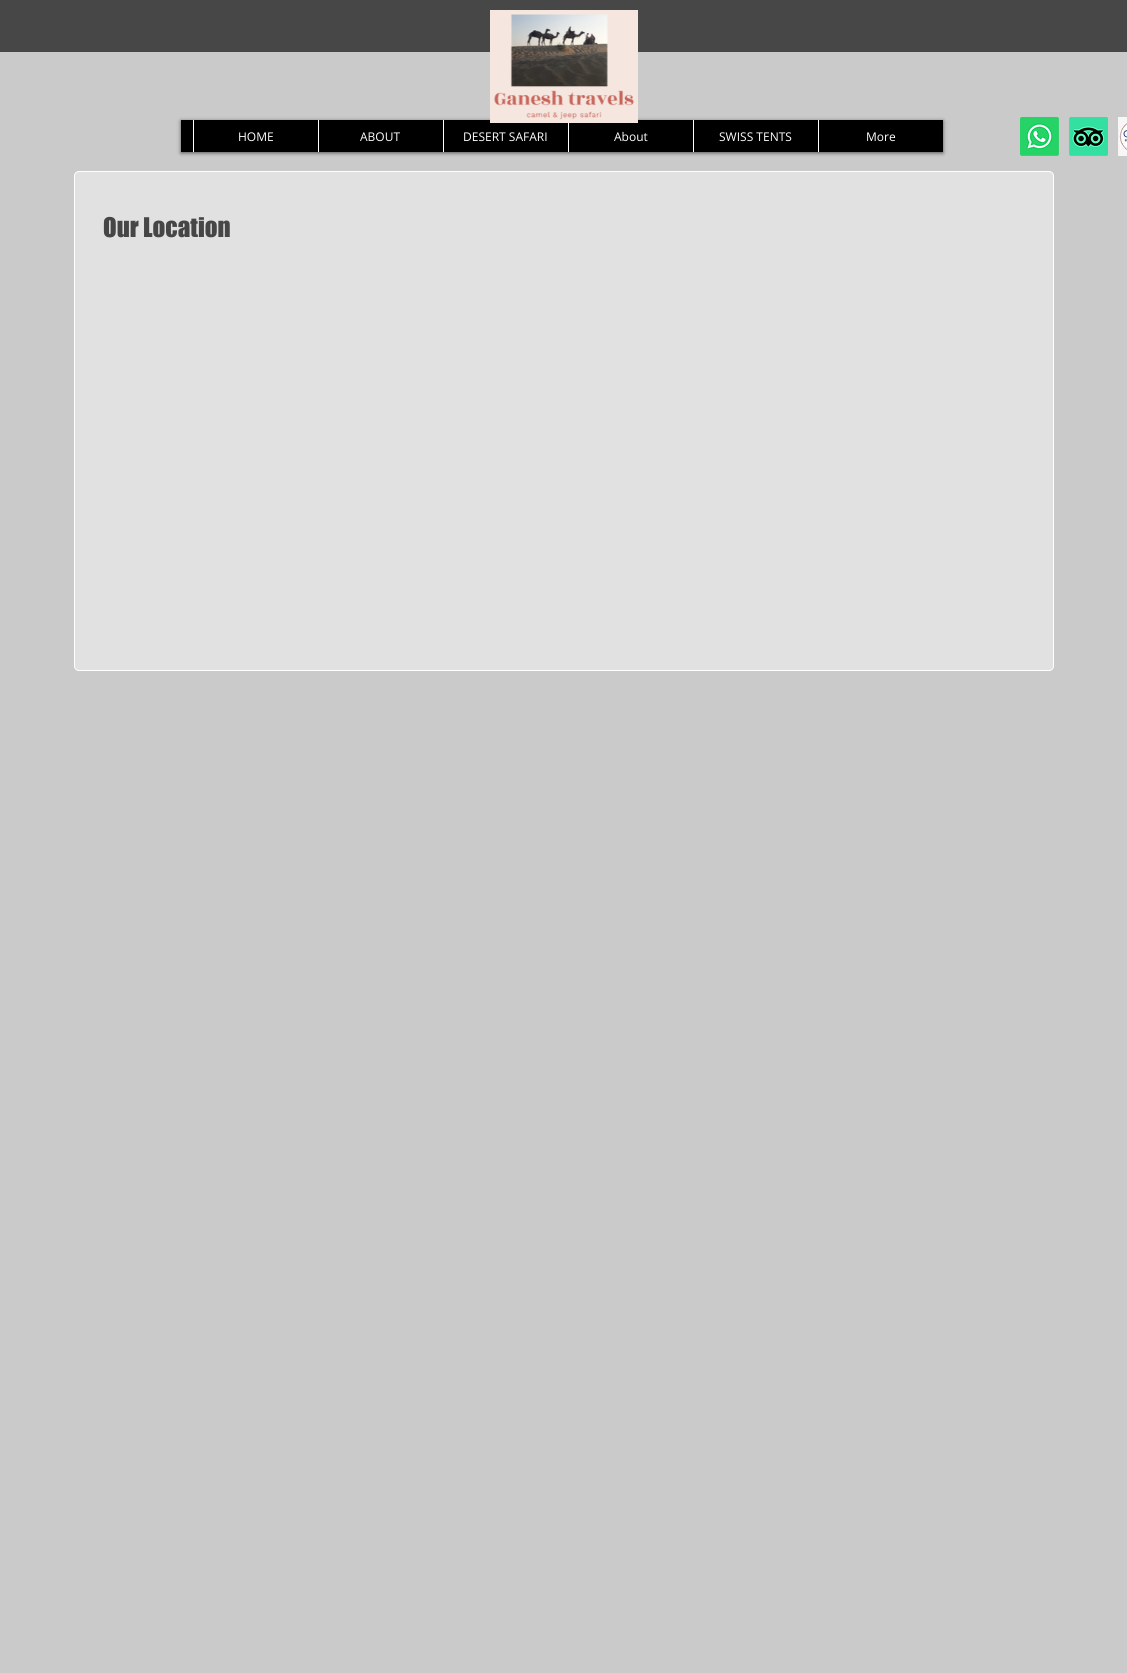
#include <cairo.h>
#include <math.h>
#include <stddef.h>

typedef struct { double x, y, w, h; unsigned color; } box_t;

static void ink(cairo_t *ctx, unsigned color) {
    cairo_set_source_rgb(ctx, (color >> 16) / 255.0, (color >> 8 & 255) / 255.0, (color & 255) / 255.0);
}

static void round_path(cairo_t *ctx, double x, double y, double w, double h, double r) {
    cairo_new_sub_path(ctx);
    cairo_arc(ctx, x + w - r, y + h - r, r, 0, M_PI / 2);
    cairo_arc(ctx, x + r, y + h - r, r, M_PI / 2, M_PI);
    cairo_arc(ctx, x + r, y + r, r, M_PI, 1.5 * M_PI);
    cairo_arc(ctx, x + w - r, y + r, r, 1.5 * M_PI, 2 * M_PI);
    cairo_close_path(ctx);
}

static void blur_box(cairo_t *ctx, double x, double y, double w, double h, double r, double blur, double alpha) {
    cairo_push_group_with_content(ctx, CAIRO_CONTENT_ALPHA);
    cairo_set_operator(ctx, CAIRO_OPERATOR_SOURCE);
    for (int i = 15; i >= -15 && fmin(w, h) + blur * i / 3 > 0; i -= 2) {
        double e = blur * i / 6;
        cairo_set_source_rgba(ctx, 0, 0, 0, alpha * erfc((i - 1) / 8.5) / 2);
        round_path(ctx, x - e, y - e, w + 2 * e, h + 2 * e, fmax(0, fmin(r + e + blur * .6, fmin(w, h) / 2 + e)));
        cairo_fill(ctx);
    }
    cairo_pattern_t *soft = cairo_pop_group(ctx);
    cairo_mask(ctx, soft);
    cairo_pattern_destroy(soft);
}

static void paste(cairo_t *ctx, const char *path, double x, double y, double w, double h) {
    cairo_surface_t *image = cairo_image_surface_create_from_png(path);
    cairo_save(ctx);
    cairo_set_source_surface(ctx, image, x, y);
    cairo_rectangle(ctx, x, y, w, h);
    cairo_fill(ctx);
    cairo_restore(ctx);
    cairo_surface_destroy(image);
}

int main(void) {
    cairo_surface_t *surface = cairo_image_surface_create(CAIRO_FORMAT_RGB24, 1127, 1673);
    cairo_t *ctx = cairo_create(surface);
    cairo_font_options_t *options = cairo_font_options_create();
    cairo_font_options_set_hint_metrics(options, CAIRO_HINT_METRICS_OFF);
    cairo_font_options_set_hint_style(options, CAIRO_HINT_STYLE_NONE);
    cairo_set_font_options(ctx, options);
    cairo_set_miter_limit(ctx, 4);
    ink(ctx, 0xCACACA);
    cairo_paint(ctx);
    ink(ctx, 0x474747);
    cairo_rectangle(ctx, 0, 0, 1127, 52);
    cairo_fill(ctx);
    ink(ctx, 0x000000);
    blur_box(ctx, 181, 121, 762, 32, 0, 2, 0.6);
    {
        static const box_t items[] = {
            {181, 120, 762, 32, 0x000000},
            {568, 120, 1, 32, 0xFFFFFF},
            {490, 10, 148, 113, 0xF5E7E0},
        };
        for (size_t i = 0; i < sizeof items / sizeof *items; i++) {
            ink(ctx, items[i].color);
            cairo_rectangle(ctx, items[i].x, items[i].y, items[i].w, items[i].h);
            cairo_fill(ctx);
        }
    }
    paste(ctx, "media/1.png", 494, 14, 140, 106);
    ink(ctx, 0xFFFFFF);
    cairo_rectangle(ctx, 193, 120, 1, 32);
    cairo_fill(ctx);
    cairo_select_font_face(ctx, "Open Sans", CAIRO_FONT_SLANT_NORMAL, CAIRO_FONT_WEIGHT_NORMAL);
    cairo_set_font_size(ctx, 12);
    cairo_move_to(ctx, 238, 141);
    cairo_show_text(ctx, "HOME");
    cairo_rectangle(ctx, 318, 120, 1, 32);
    cairo_fill(ctx);
    cairo_move_to(ctx, 360, 141);
    cairo_show_text(ctx, "ABOUT");
    cairo_rectangle(ctx, 443, 120, 1, 32);
    cairo_fill(ctx);
    cairo_move_to(ctx, 463, 141);
    cairo_show_text(ctx, "DESERT SAFARI");
    cairo_move_to(ctx, 614, 141);
    cairo_show_text(ctx, "About");
    cairo_rectangle(ctx, 693, 120, 1, 32);
    cairo_fill(ctx);
    cairo_move_to(ctx, 719, 141);
    cairo_show_text(ctx, "SWISS TENTS");
    cairo_rectangle(ctx, 818, 120, 1, 32);
    cairo_fill(ctx);
    cairo_move_to(ctx, 866, 141);
    cairo_show_text(ctx, "More");
    paste(ctx, "media/2.png", 1020, 117, 39, 39);
    paste(ctx, "media/3.png", 1069, 117, 39, 39);
    paste(ctx, "media/4.png", 1118, 117, 9, 39);
    ink(ctx, 0xE1E1E1);
    round_path(ctx, 74.5, 171.5, 979, 499, 4.5);
    cairo_fill_preserve(ctx);
    ink(ctx, 0xFFFFFF);
    cairo_set_line_width(ctx, 1);
    cairo_stroke(ctx);
    cairo_select_font_face(ctx, "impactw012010", CAIRO_FONT_SLANT_NORMAL, CAIRO_FONT_WEIGHT_NORMAL);
    cairo_set_font_size(ctx, 25);
    ink(ctx, 0x464646);
    cairo_move_to(ctx, 103, 237);
    cairo_show_text(ctx, "Our Location");
    cairo_surface_write_to_png(surface, "image.png");
    cairo_font_options_destroy(options);
    cairo_destroy(ctx);
    cairo_surface_destroy(surface);
    return 0;
}
